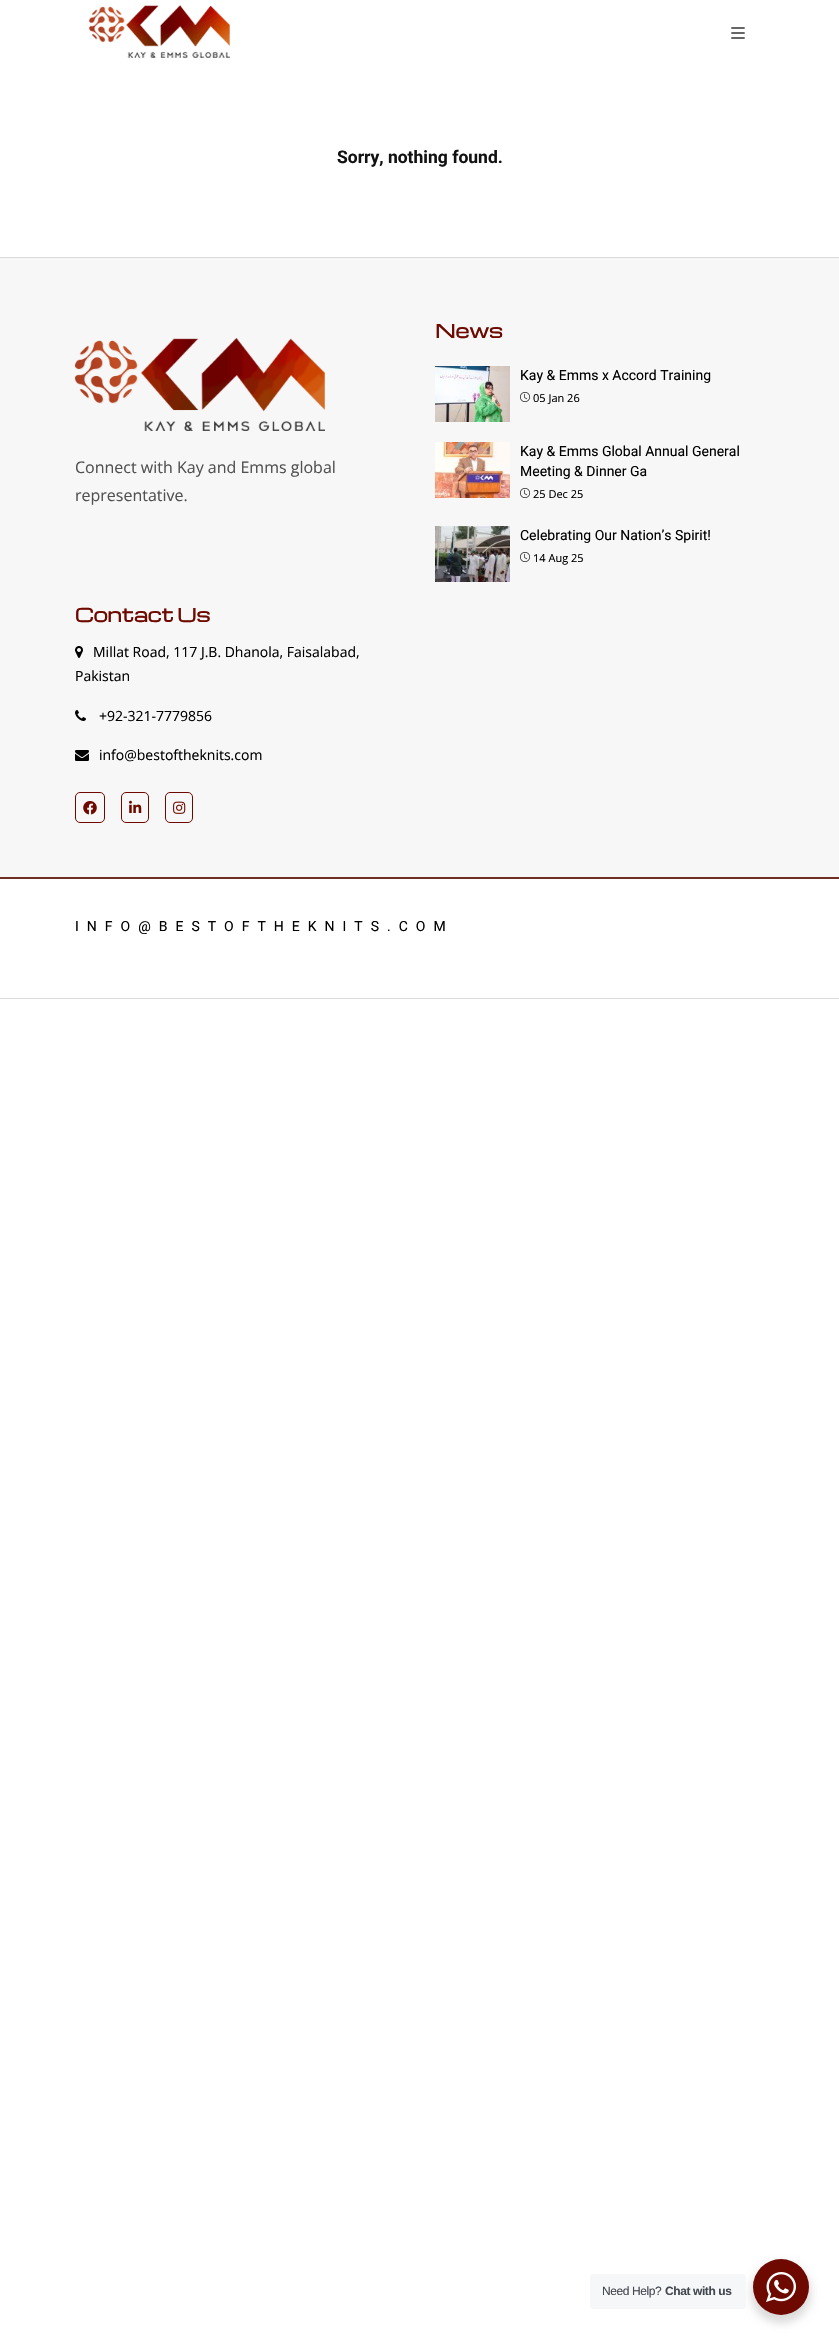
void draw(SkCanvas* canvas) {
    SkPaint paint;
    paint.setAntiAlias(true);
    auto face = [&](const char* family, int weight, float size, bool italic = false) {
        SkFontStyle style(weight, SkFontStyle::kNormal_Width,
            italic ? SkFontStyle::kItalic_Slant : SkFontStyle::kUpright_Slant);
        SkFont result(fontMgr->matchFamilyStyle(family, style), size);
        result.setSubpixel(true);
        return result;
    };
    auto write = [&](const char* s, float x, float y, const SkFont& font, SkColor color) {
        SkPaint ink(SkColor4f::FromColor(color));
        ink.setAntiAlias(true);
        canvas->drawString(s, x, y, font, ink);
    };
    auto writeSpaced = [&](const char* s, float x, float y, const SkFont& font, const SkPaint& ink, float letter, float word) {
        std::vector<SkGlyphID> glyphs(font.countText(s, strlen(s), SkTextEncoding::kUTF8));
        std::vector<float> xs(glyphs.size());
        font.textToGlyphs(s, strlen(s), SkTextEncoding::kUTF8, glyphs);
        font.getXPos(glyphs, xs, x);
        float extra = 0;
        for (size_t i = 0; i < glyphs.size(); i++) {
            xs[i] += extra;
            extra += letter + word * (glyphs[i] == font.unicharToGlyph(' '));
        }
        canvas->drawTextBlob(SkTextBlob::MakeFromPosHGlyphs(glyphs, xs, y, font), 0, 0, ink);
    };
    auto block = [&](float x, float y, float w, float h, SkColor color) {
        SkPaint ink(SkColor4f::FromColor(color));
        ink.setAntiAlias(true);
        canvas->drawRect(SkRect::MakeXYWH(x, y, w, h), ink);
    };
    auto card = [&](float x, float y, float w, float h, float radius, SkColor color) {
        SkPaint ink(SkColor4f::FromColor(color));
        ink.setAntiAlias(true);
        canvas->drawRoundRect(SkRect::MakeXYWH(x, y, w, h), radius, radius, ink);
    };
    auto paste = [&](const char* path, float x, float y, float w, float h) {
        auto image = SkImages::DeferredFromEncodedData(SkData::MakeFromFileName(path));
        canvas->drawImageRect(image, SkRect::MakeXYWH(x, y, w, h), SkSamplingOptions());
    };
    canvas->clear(SK_ColorWHITE);
    paste("pic1.png", 89, 5, 141, 53);
    paste("pic2.png", 731, 27, 14, 12);
    auto kFont1 = face("Roboto", 700, 17.5f);
    write("Sorry, nothing found.", 337, 163, kFont1, SkColorSetRGB(18, 18, 18));
    paint.setStyle(SkPaint::kStroke_Style);
    paint.setStrokeWidth(1);
    paint.setColor(SkColorSetRGB(217, 217, 217));
    canvas->drawRect(SkRect::MakeXYWH(-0.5f, 257.5f, 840, 741), paint);
    block(0, 258, 839, 619, SkColorSetRGB(247, 247, 247));
    paste("pic3.png", 75, 338, 250, 93);
    auto kFont2 = face("Open Sans", 400, 16);
    write("Connect with Kay and Emms global", 75, 473, kFont2, SkColorSetRGB(82, 81, 81));
    write("representative.", 75, 501, kFont2, SkColorSetRGB(82, 81, 81));
    auto kFont3 = face("Michroma", 700, 18);
    write("News", 435, 338, kFont3, SkColorSetRGB(110, 9, 0));
    paste("pic4.png", 435, 366, 75, 56);
    auto kFont4 = face("Roboto", 400, 14);
    write("Kay & Emms x Accord Training", 520, 380, kFont4, SK_ColorBLACK);
    paste("pic5.png", 520, 392, 10, 10);
    auto kFont5 = face("Open Sans", 400, 11);
    write("05 Jan 26", 533, 402, kFont5, SK_ColorBLACK);
    paste("pic6.png", 435, 442, 75, 56);
    write("Kay & Emms Global Annual General", 520, 456, kFont4, SK_ColorBLACK);
    write("Meeting & Dinner Ga", 520, 476, kFont4, SK_ColorBLACK);
    paste("pic5.png", 520, 488, 10, 10);
    write("25 Dec 25", 533, 498, kFont5, SK_ColorBLACK);
    paste("pic7.png", 435, 526, 75, 56);
    write("Celebrating Our Nation’s Spirit!", 520, 540, kFont4, SK_ColorBLACK);
    paste("pic5.png", 520, 552, 10, 10);
    write("14 Aug 25", 533, 562, kFont5, SK_ColorBLACK);
    write("Contact Us", 75, 622, kFont3, SkColorSetRGB(110, 9, 0));
    paste("pic8.png", 75, 646, 8, 12);
    auto kFont6 = face("Open Sans", 400, 14);
    write("Millat Road, 117 J.B. Dhanola, Faisalabad,", 93, 657, kFont6, SK_ColorBLACK);
    write("Pakistan", 75, 681, kFont6, SK_ColorBLACK);
    paste("pic9.png", 75, 710, 11, 11);
    write("+92-321-7779856", 99, 721, kFont6, SK_ColorBLACK);
    paste("pic10.png", 75, 750, 14, 11);
    write("info@bestoftheknits.com", 99, 760, kFont6, SK_ColorBLACK);
    paint.setColor(SkColorSetRGB(110, 9, 0));
    canvas->drawRoundRect(SkRect::MakeXYWH(75.5f, 792.5f, 29, 30), 4.5f, 4.5f, paint);
    paste("pic11.png", 83, 801, 14, 14);
    canvas->drawRoundRect(SkRect::MakeXYWH(121.5f, 792.5f, 27, 30), 4.5f, 4.5f, paint);
    paste("pic12.png", 129, 800, 13, 13);
    canvas->drawRoundRect(SkRect::MakeXYWH(165.5f, 792.5f, 27, 30), 4.5f, 4.5f, paint);
    paste("pic13.png", 173, 801, 13, 13);
    block(0, 877, 839, 2, SkColorSetRGB(114, 46, 35));
    paint.setStyle(SkPaint::kFill_Style);
    paint.setColor(SK_ColorBLACK);
    writeSpaced("INFO@BESTOFTHEKNITS.COM", 75, 931, kFont4, paint, 8, 0);
    paint.setColor(SkColorSetARGB(36, 0, 0, 0));
    paint.setMaskFilter(SkMaskFilter::MakeBlur(kNormal_SkBlurStyle, 4));
    canvas->drawRoundRect(SkRect::MakeXYWH(751, 2263, 60, 60), 30, 30, paint);
    paint.setMaskFilter(nullptr);
    card(590, 2274, 156, 35, 4, SkColorSetRGB(245, 247, 249));
    auto kFont7 = face("Liberation Sans", 400, 12);
    paint.setColor(SkColorSetRGB(67, 71, 78));
    writeSpaced("Need Help?", 602, 2295, kFont7, paint, -0.4f, 0);
    auto kFont8 = face("Liberation Sans", 700, 12);
    writeSpaced("Chat with us", 665, 2295, kFont8, paint, -0.4f, 0);
    paint.setColor(SkColorSetRGB(110, 9, 0));
    canvas->drawCircle(781, 2287, 28, paint);
    paste("pic14.png", 766, 2272, 30, 30);
}
